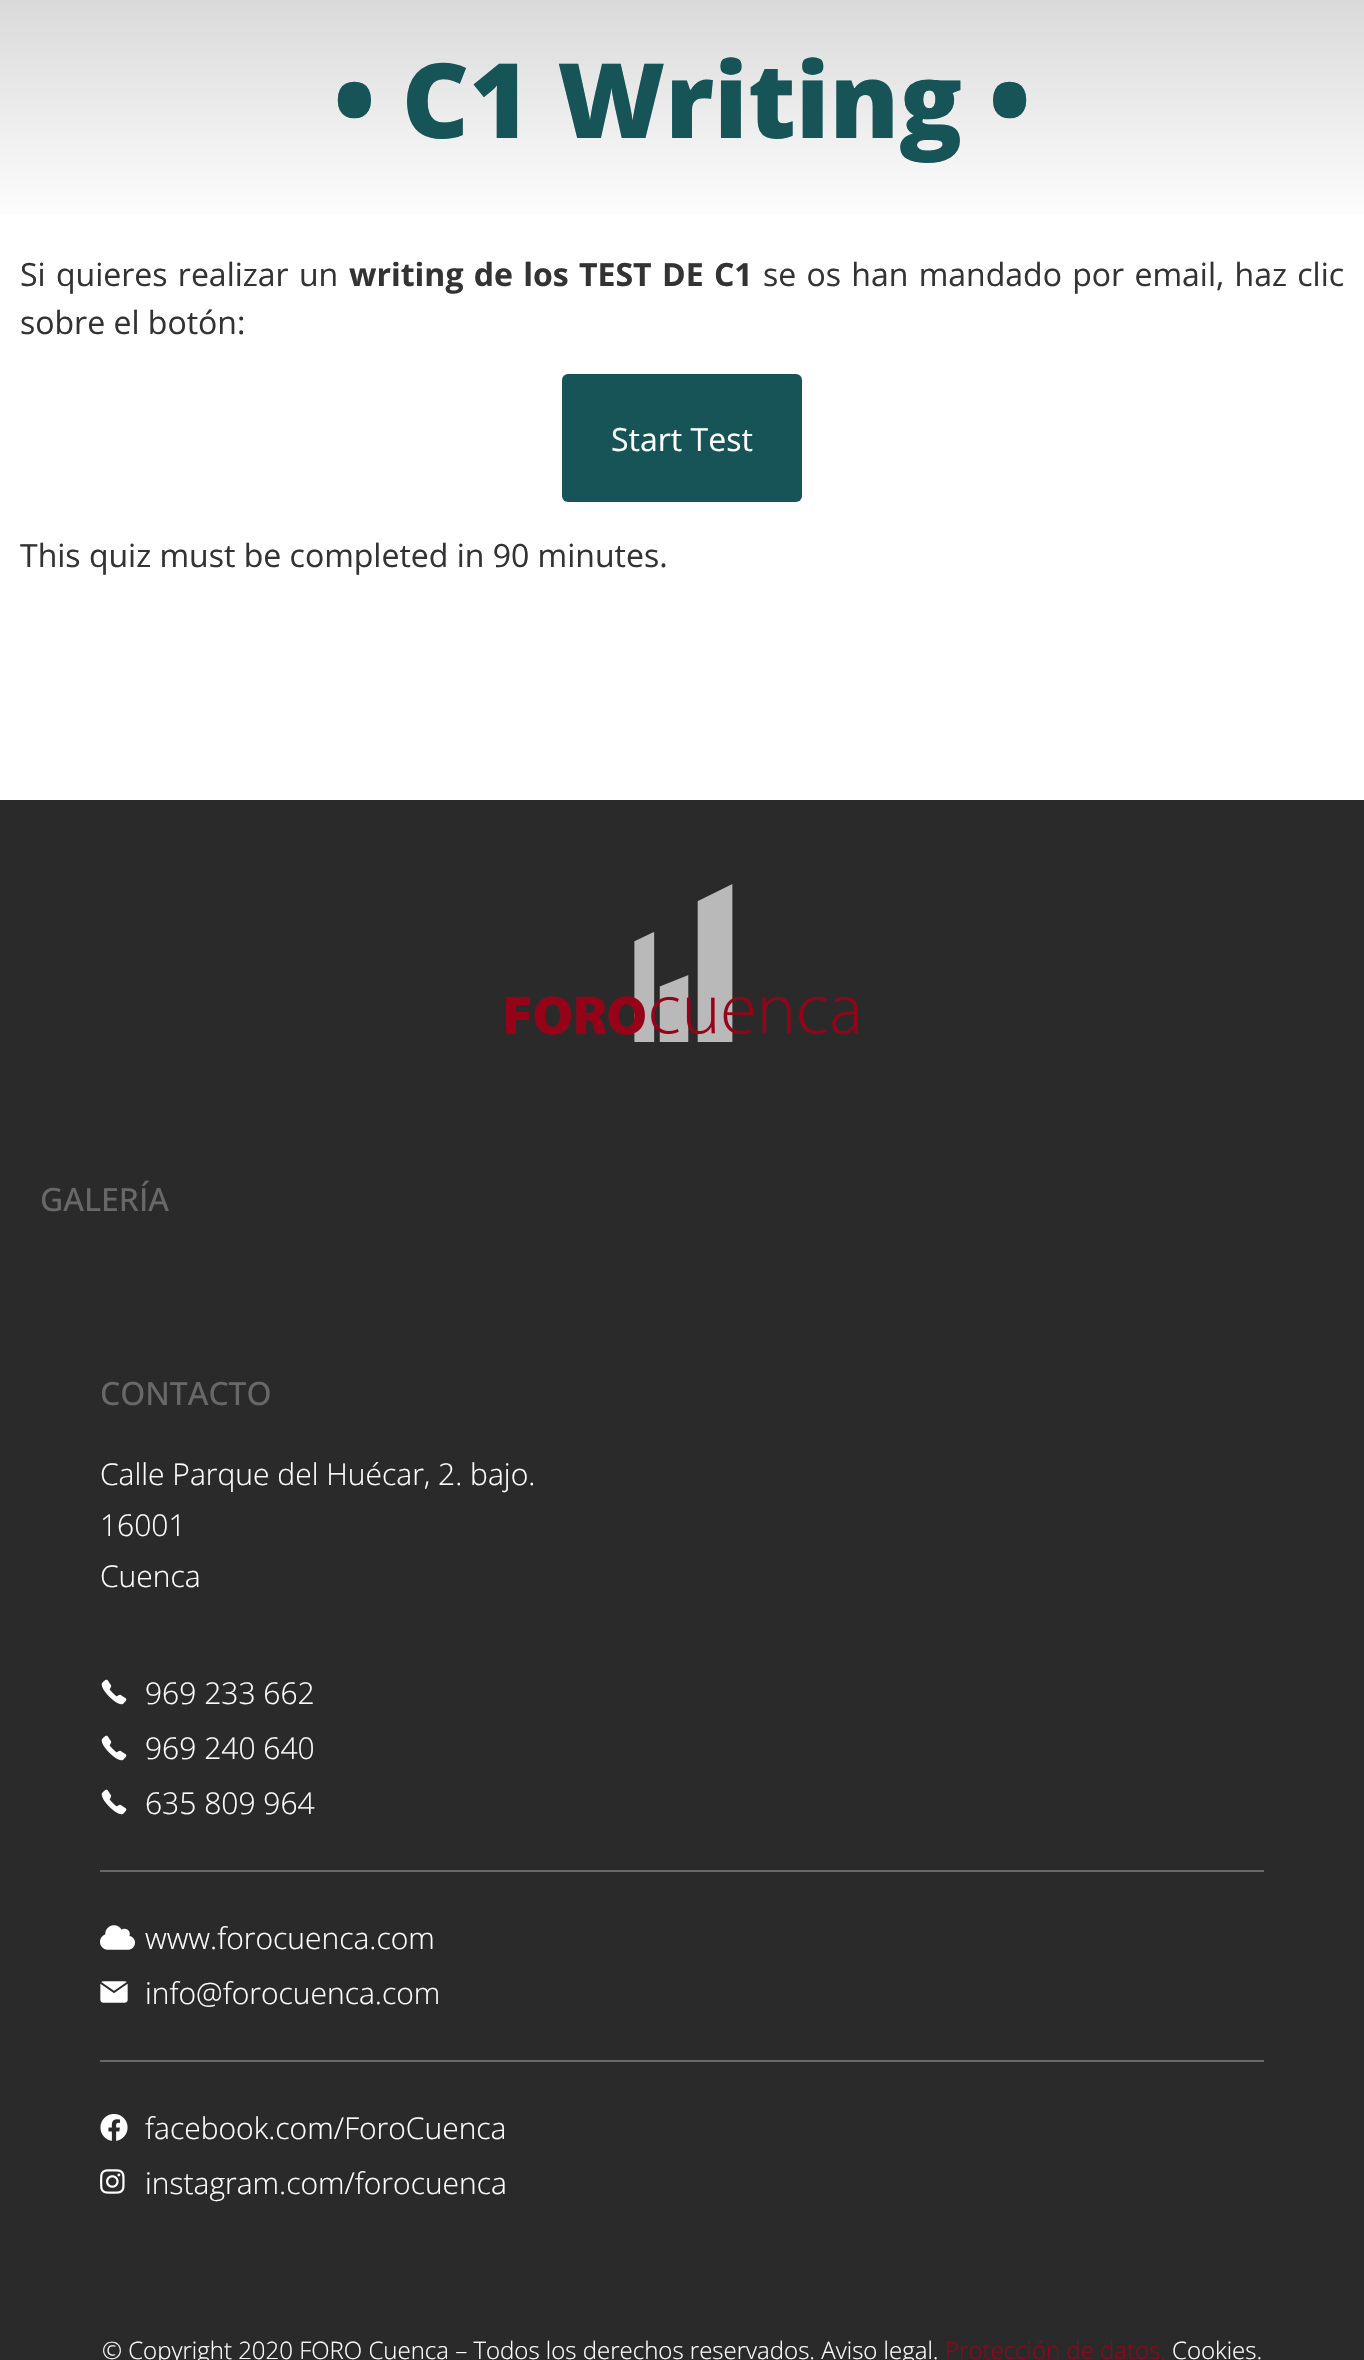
void draw(SkCanvas* canvas) {
    SkPaint paint;
    paint.setAntiAlias(true);
    auto face = [&](const char* family, int weight, float size, bool italic = false) {
        SkFontStyle style(weight, SkFontStyle::kNormal_Width,
            italic ? SkFontStyle::kItalic_Slant : SkFontStyle::kUpright_Slant);
        SkFont result(fontMgr->matchFamilyStyle(family, style), size);
        result.setSubpixel(true);
        return result;
    };
    auto write = [&](const char* s, float x, float y, const SkFont& font, SkColor color) {
        SkPaint ink(SkColor4f::FromColor(color));
        ink.setAntiAlias(true);
        canvas->drawString(s, x, y, font, ink);
    };
    auto writeSpaced = [&](const char* s, float x, float y, const SkFont& font, const SkPaint& ink, float letter, float word) {
        std::vector<SkGlyphID> glyphs(font.countText(s, strlen(s), SkTextEncoding::kUTF8));
        std::vector<float> xs(glyphs.size());
        font.textToGlyphs(s, strlen(s), SkTextEncoding::kUTF8, glyphs);
        font.getXPos(glyphs, xs, x);
        float extra = 0;
        for (size_t i = 0; i < glyphs.size(); i++) {
            xs[i] += extra;
            extra += letter + word * (glyphs[i] == font.unicharToGlyph(' '));
        }
        canvas->drawTextBlob(SkTextBlob::MakeFromPosHGlyphs(glyphs, xs, y, font), 0, 0, ink);
    };
    auto block = [&](float x, float y, float w, float h, SkColor color) {
        SkPaint ink(SkColor4f::FromColor(color));
        ink.setAntiAlias(true);
        canvas->drawRect(SkRect::MakeXYWH(x, y, w, h), ink);
    };
    auto card = [&](float x, float y, float w, float h, float radius, SkColor color) {
        SkPaint ink(SkColor4f::FromColor(color));
        ink.setAntiAlias(true);
        canvas->drawRoundRect(SkRect::MakeXYWH(x, y, w, h), radius, radius, ink);
    };
    auto paste = [&](const char* path, float x, float y, float w, float h) {
        auto image = SkImages::DeferredFromEncodedData(SkData::MakeFromFileName(path));
        canvas->drawImageRect(image, SkRect::MakeXYWH(x, y, w, h), SkSamplingOptions());
    };
    canvas->clear(SK_ColorWHITE);
    {
        const SkColor colors[] = {SkColorSetRGB(199, 199, 199), SK_ColorWHITE};
        const float stops[] = {0, 1};
        const SkPoint ends[] = {{682, -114}, {682, 230}};
        paint.setShader(SkGradientShader::MakeLinear(ends, colors, stops, 2, SkTileMode::kClamp));
        paint.setAlpha(255);
    }
    canvas->drawRect(SkRect::MakeXYWH(0, 0, 1364, 215), paint);
    auto kFont1 = face("Open Sans", 800, 104);
    write("• C1 Writing •", 334, 138, kFont1, SkColorSetRGB(22, 84, 87));
    auto kFont2 = face("Open Sans", 400, 32);
    paint.setShader(nullptr);
    paint.setColor(SkColorSetRGB(51, 51, 51));
    writeSpaced("Si quieres realizar un", 20, 286, kFont2, paint, 0, 2);
    auto kFont3 = face("Open Sans", 700, 32);
    writeSpaced("writing de los TEST DE C1", 349, 286, kFont3, paint, 0, 2);
    writeSpaced("se os han mandado por email, haz clic", 763, 286, kFont2, paint, 0, 2);
    write("sobre el botón:", 20, 334, kFont2, SkColorSetRGB(51, 51, 51));
    card(562, 374, 240, 128, 6, SkColorSetRGB(22, 84, 87));
    write("Start Test", 611, 451, kFont2, SK_ColorWHITE);
    write("This quiz must be completed in 90 minutes.", 20, 567, kFont2, SkColorSetRGB(51, 51, 51));
    block(0, 800, 1364, 1560, SkColorSetRGB(42, 42, 42));
    paste("pic1.png", 506, 884, 352, 158);
    auto kFont4 = face("Open Sans", 500, 32);
    write("GALERÍA", 40, 1211, kFont4, SkColorSetRGB(104, 104, 104));
    write("CONTACTO", 100, 1405, kFont4, SkColorSetRGB(104, 104, 104));
    auto kFont5 = face("Open Sans", 300, 30);
    write("Calle Parque del Huécar, 2. bajo.", 100, 1485, kFont5, SK_ColorWHITE);
    write("16001", 100, 1536, kFont5, SK_ColorWHITE);
    write("Cuenca", 100, 1587, kFont5, SK_ColorWHITE);
    paste("pic2.png", 101, 1679, 26, 26);
    write("969 233 662", 145, 1704, kFont5, SK_ColorWHITE);
    paste("pic2.png", 101, 1735, 26, 26);
    write("969 240 640", 145, 1759, kFont5, SK_ColorWHITE);
    paste("pic2.png", 101, 1789, 26, 26);
    write("635 809 964", 145, 1814, kFont5, SK_ColorWHITE);
    block(100, 1870, 1164, 2, SkColorSetRGB(104, 104, 104));
    paste("pic3.png", 100, 1925, 35, 25);
    write("www.forocuenca.com", 145, 1949, kFont5, SK_ColorWHITE);
    paste("pic4.png", 100, 1981, 28, 22);
    write("info@forocuenca.com", 145, 2004, kFont5, SK_ColorWHITE);
    block(100, 2060, 1164, 2, SkColorSetRGB(104, 104, 104));
    paste("pic5.png", 100, 2114, 28, 27);
    write("facebook.com/ForoCuenca", 145, 2139, kFont5, SK_ColorWHITE);
    paste("pic6.png", 100, 2169, 25, 25);
    write("instagram.com/forocuenca", 145, 2194, kFont5, SK_ColorWHITE);
    auto kFont6 = face("Open Sans", 300, 24);
    write("© Copyright 2020 FORO Cuenca – Todos los derechos reservados. Aviso legal.", 102, 2359, kFont6, SK_ColorWHITE);
    write("Protección de datos.", 945, 2359, kFont6, SkColorSetRGB(150, 3, 25));
    write("Cookies.", 1172, 2359, kFont6, SK_ColorWHITE);
}
